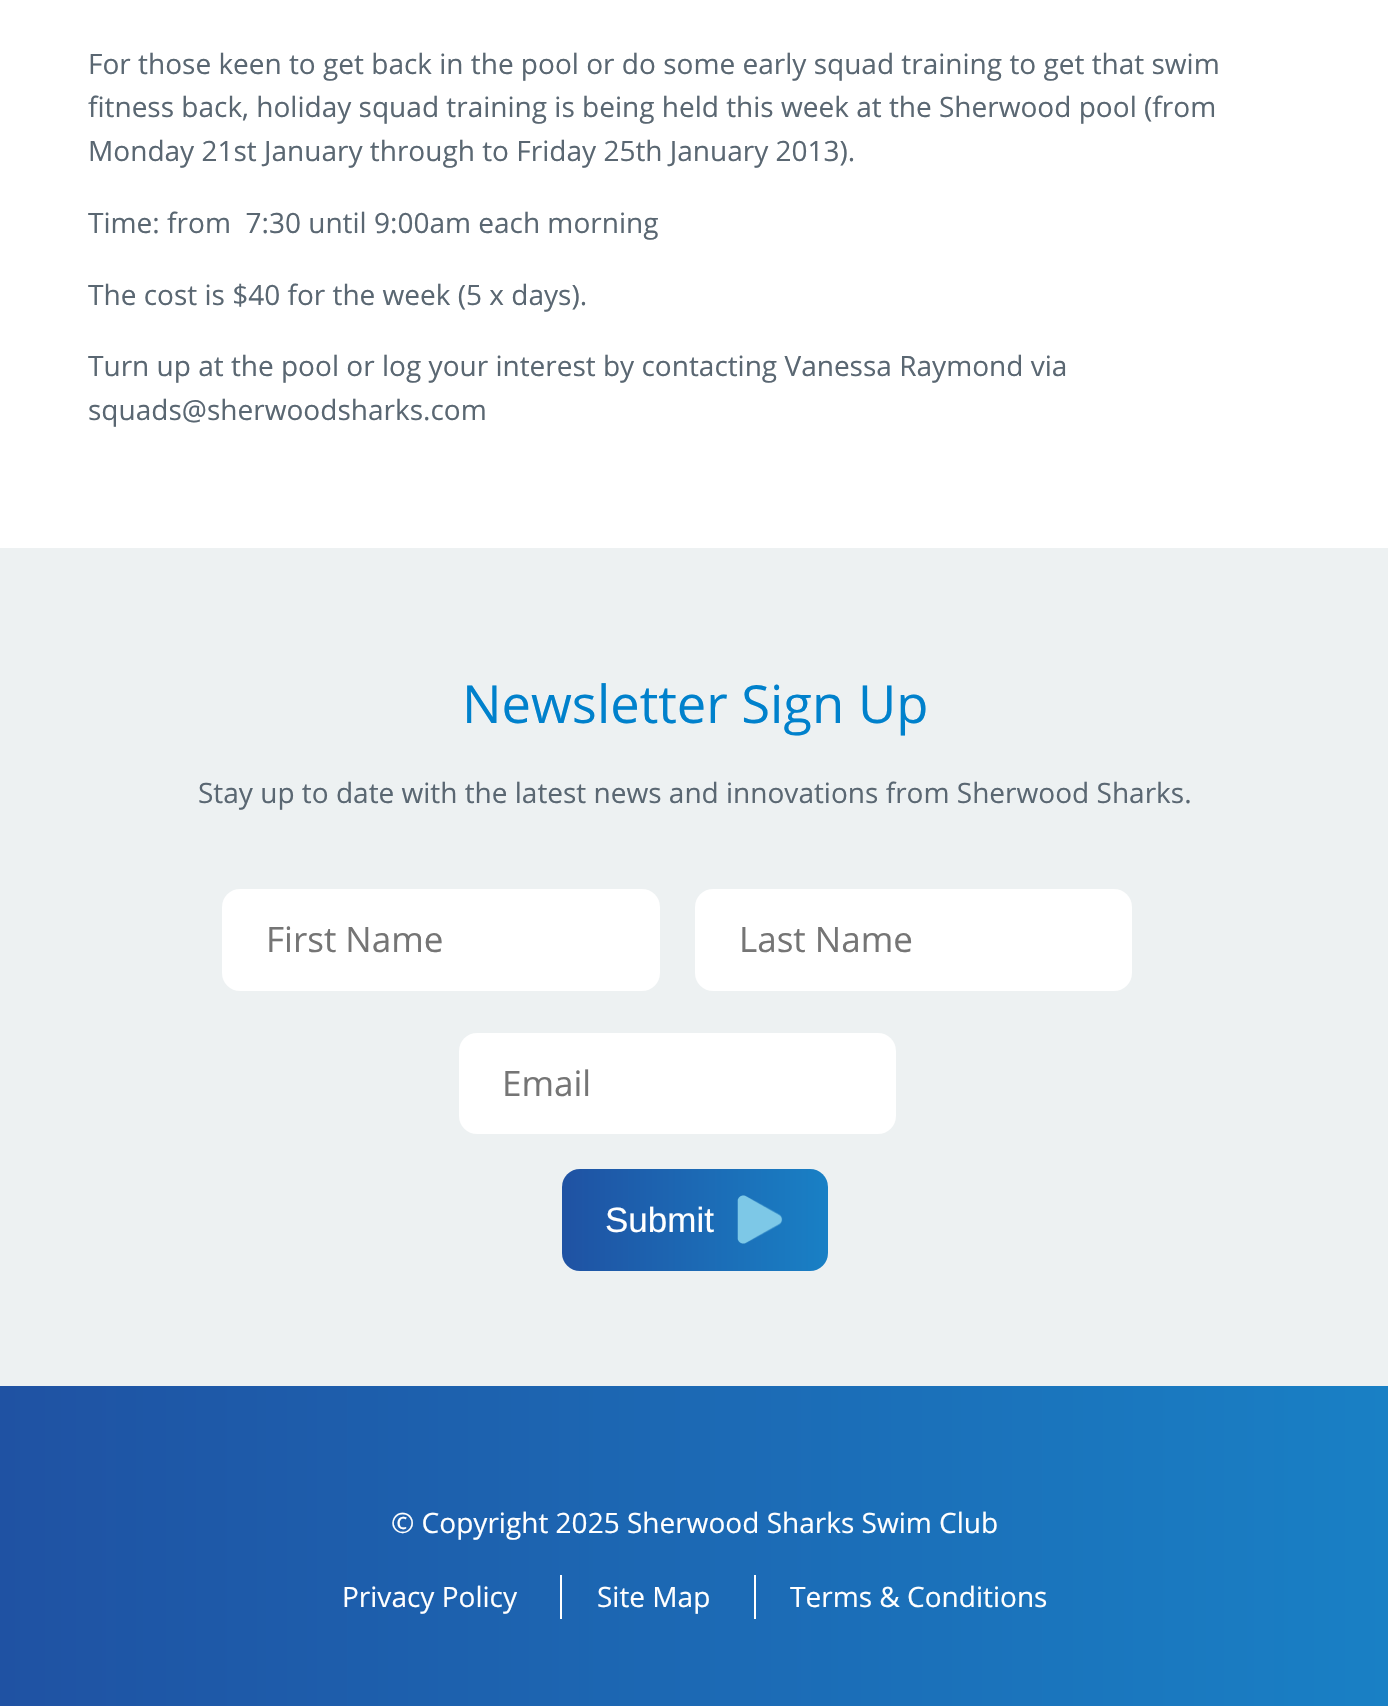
void draw(SkCanvas* canvas) {
    SkPaint paint;
    paint.setAntiAlias(true);
    auto face = [&](const char* family, int weight, float size, bool italic = false) {
        SkFontStyle style(weight, SkFontStyle::kNormal_Width,
            italic ? SkFontStyle::kItalic_Slant : SkFontStyle::kUpright_Slant);
        SkFont result(fontMgr->matchFamilyStyle(family, style), size);
        result.setSubpixel(true);
        return result;
    };
    auto write = [&](const char* s, float x, float y, const SkFont& font, SkColor color) {
        SkPaint ink(SkColor4f::FromColor(color));
        ink.setAntiAlias(true);
        canvas->drawString(s, x, y, font, ink);
    };
    auto block = [&](float x, float y, float w, float h, SkColor color) {
        SkPaint ink(SkColor4f::FromColor(color));
        ink.setAntiAlias(true);
        canvas->drawRect(SkRect::MakeXYWH(x, y, w, h), ink);
    };
    auto card = [&](float x, float y, float w, float h, float radius, SkColor color) {
        SkPaint ink(SkColor4f::FromColor(color));
        ink.setAntiAlias(true);
        canvas->drawRoundRect(SkRect::MakeXYWH(x, y, w, h), radius, radius, ink);
    };
    auto paste = [&](const char* path, float x, float y, float w, float h) {
        auto image = SkImages::DeferredFromEncodedData(SkData::MakeFromFileName(path));
        canvas->drawImageRect(image, SkRect::MakeXYWH(x, y, w, h), SkSamplingOptions());
    };
    canvas->clear(SK_ColorWHITE);
    auto kFont1 = face("Open Sans", 400, 28);
    write("For those keen to get back in the pool or do some early squad training to get that swim", 88, 74, kFont1, SkColorSetRGB(90, 103, 114));
    write("fitness back, holiday squad training is being held this week at the Sherwood pool (from", 88, 117, kFont1, SkColorSetRGB(90, 103, 114));
    write("Monday 21st January through to Friday 25th January 2013).", 88, 161, kFont1, SkColorSetRGB(90, 103, 114));
    write("Time: from  7:30 until 9:00am each morning", 88, 233, kFont1, SkColorSetRGB(90, 103, 114));
    write("The cost is $40 for the week (5 x days).", 88, 305, kFont1, SkColorSetRGB(90, 103, 114));
    write("Turn up at the pool or log your interest by contacting Vanessa Raymond via", 88, 376, kFont1, SkColorSetRGB(90, 103, 114));
    write("squads@sherwoodsharks.com", 88, 420, kFont1, SkColorSetRGB(90, 103, 114));
    block(0, 548, 1388, 838, SkColorSetRGB(237, 241, 242));
    auto kFont2 = face("Open Sans", 400, 52.5f);
    write("Newsletter Sign Up", 462, 723, kFont2, SkColorSetRGB(0, 129, 204));
    write("Stay up to date with the latest news and innovations from Sherwood Sharks.", 198, 803, kFont1, SkColorSetRGB(90, 103, 114));
    card(222, 889, 438, 102, 18, SK_ColorWHITE);
    auto kFont3 = face("Open Sans", 400, 35);
    write("First Name", 266, 952, kFont3, SkColorSetRGB(117, 117, 117));
    card(695, 889, 437, 102, 18, SK_ColorWHITE);
    write("Last Name", 739, 952, kFont3, SkColorSetRGB(117, 117, 117));
    card(459, 1033, 437, 101, 18, SK_ColorWHITE);
    write("Email", 502, 1096, kFont3, SkColorSetRGB(117, 117, 117));
    {
        const SkColor colors[] = {SkColorSetRGB(31, 82, 163), SkColorSetRGB(25, 128, 197)};
        const float stops[] = {0, 1};
        const SkPoint ends[] = {{562, 1220}, {828, 1220}};
        paint.setShader(SkGradientShader::MakeLinear(ends, colors, stops, 2, SkTileMode::kClamp));
        paint.setAlpha(255);
    }
    canvas->drawRoundRect(SkRect::MakeXYWH(562, 1169, 266, 102), 18, 18, paint);
    paste("pic1.png", 737, 1195, 46, 49);
    auto kFont4 = face("Liberation Sans", 400, 35);
    write("Submit", 605, 1232, kFont4, SK_ColorWHITE);
    {
        const SkColor colors[] = {SkColorSetRGB(31, 82, 163), SkColorSetRGB(25, 128, 197)};
        const float stops[] = {0, 1};
        const SkPoint ends[] = {{0, 1546}, {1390, 1546}};
        paint.setShader(SkGradientShader::MakeLinear(ends, colors, stops, 2, SkTileMode::kClamp));
        paint.setAlpha(255);
    }
    canvas->drawRect(SkRect::MakeXYWH(0, 1386, 1388, 320), paint);
    write("© Copyright 2025 Sherwood Sharks Swim Club", 391, 1533, kFont1, SK_ColorWHITE);
    write("Privacy Policy", 342, 1607, kFont1, SK_ColorWHITE);
    block(560, 1575, 2, 44, SK_ColorWHITE);
    write("Site Map", 597, 1607, kFont1, SK_ColorWHITE);
    block(754, 1575, 2, 44, SK_ColorWHITE);
    write("Terms & Conditions", 790, 1607, kFont1, SK_ColorWHITE);
}
